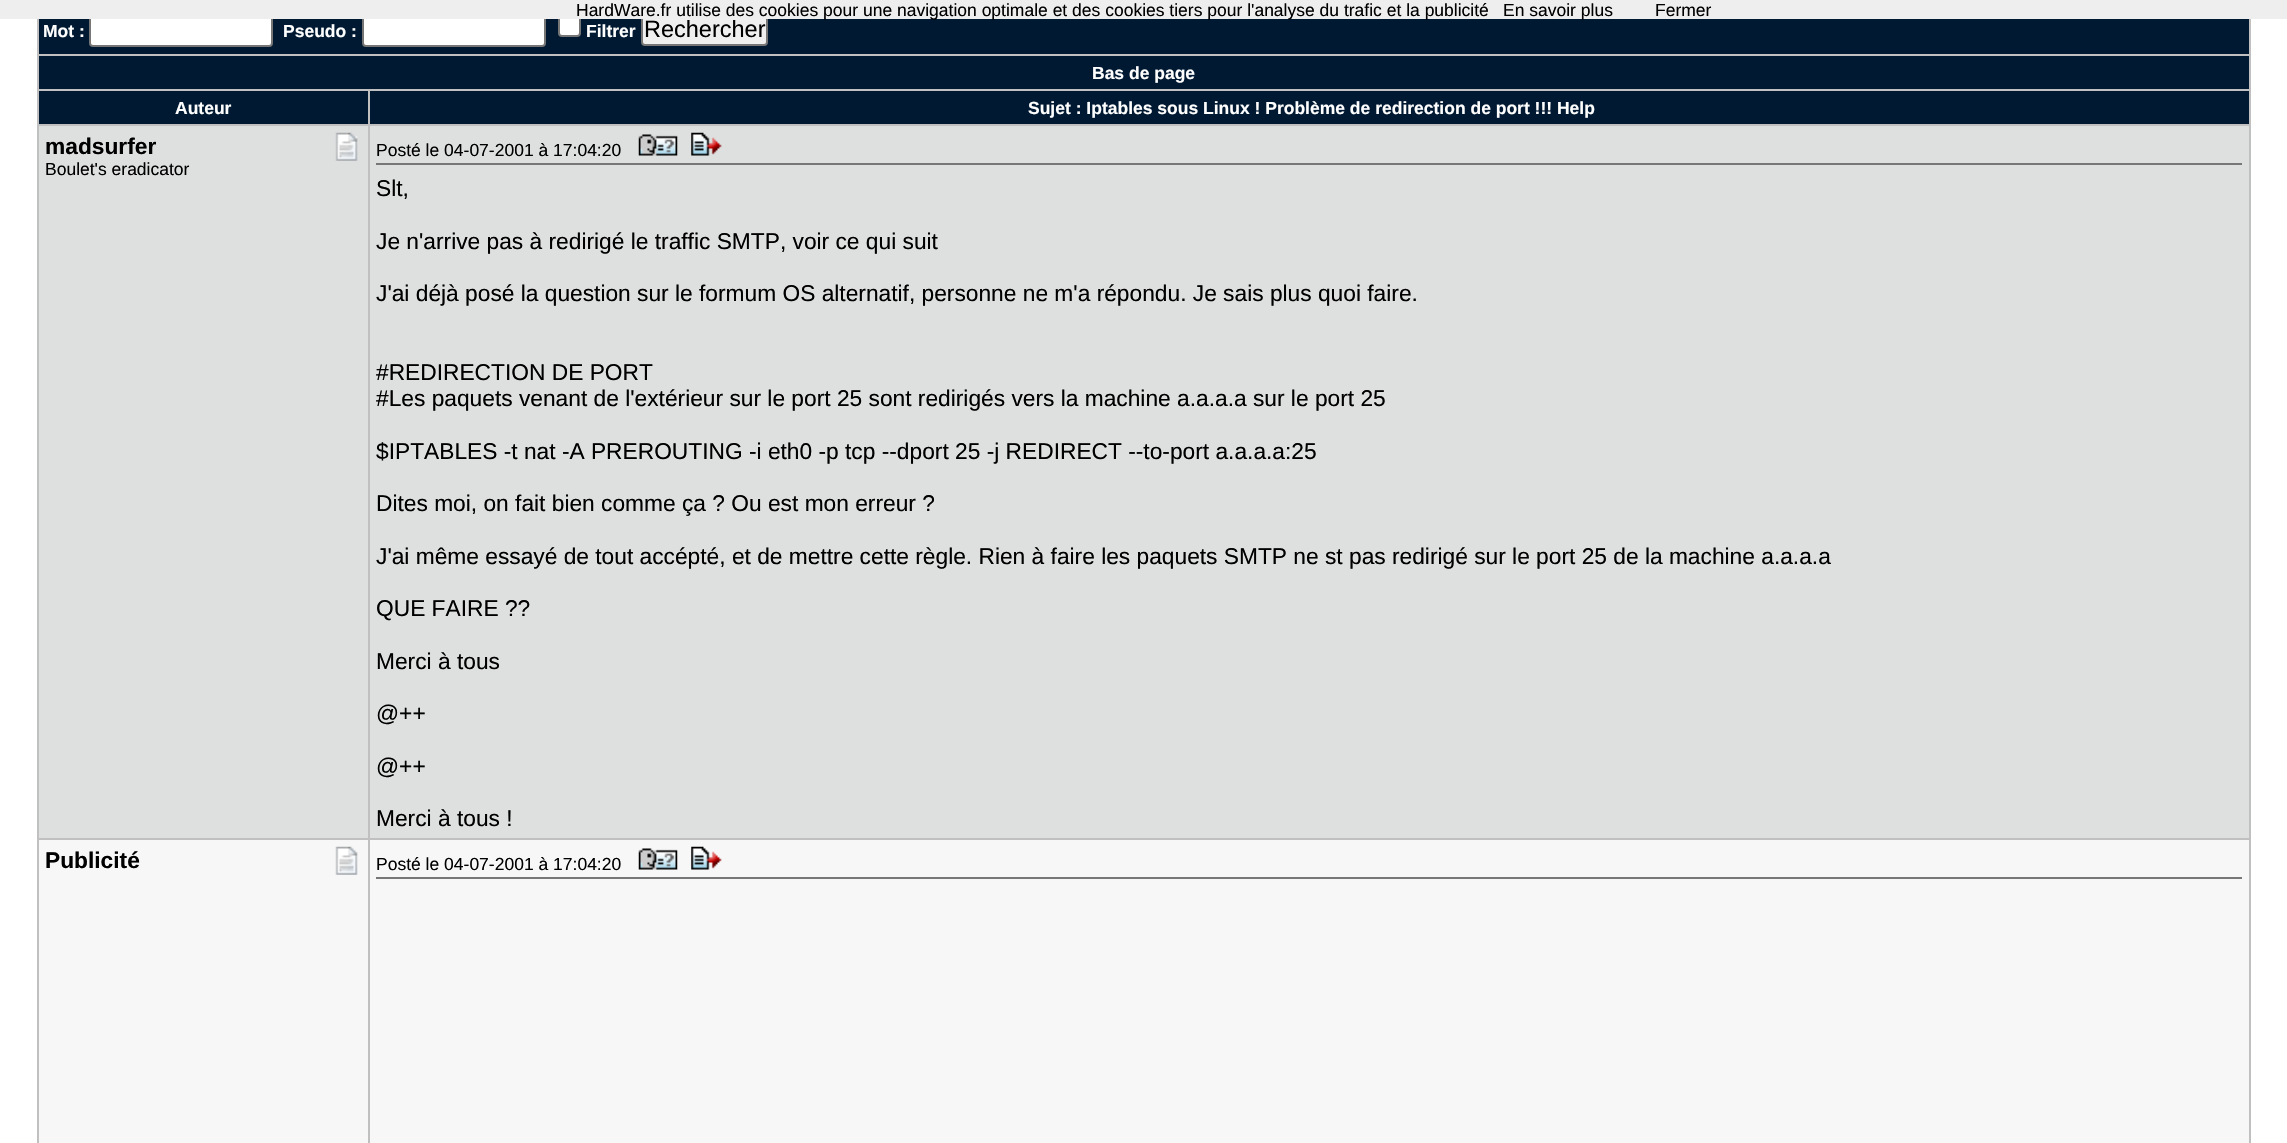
void draw(SkCanvas* canvas) {
    SkPaint paint;
    paint.setAntiAlias(true);
    auto face = [&](const char* family, int weight, float size, bool italic = false) {
        SkFontStyle style(weight, SkFontStyle::kNormal_Width,
            italic ? SkFontStyle::kItalic_Slant : SkFontStyle::kUpright_Slant);
        SkFont result(fontMgr->matchFamilyStyle(family, style), size);
        result.setSubpixel(true);
        return result;
    };
    auto write = [&](const char* s, float x, float y, const SkFont& font, SkColor color) {
        SkPaint ink(SkColor4f::FromColor(color));
        ink.setAntiAlias(true);
        canvas->drawString(s, x, y, font, ink);
    };
    auto block = [&](float x, float y, float w, float h, SkColor color) {
        SkPaint ink(SkColor4f::FromColor(color));
        ink.setAntiAlias(true);
        canvas->drawRect(SkRect::MakeXYWH(x, y, w, h), ink);
    };
    auto paste = [&](const char* path, float x, float y, float w, float h) {
        auto image = SkImages::DeferredFromEncodedData(SkData::MakeFromFileName(path));
        canvas->drawImageRect(image, SkRect::MakeXYWH(x, y, w, h), SkSamplingOptions());
    };
    canvas->clear(SK_ColorWHITE);
    block(39, 19, 2210, 35, SkColorSetRGB(0, 25, 50));
    paint.setColor(SK_ColorWHITE);
    canvas->drawRoundRect(SkRect::MakeXYWH(90, 12, 182, 34), 3, 3, paint);
    paint.setStyle(SkPaint::kStroke_Style);
    paint.setStrokeWidth(2);
    paint.setColor(SkColorSetRGB(118, 118, 118));
    canvas->drawRoundRect(SkRect::MakeXYWH(90, 12, 182, 34), 3, 3, paint);
    paint.setStyle(SkPaint::kFill_Style);
    paint.setColor(SK_ColorWHITE);
    canvas->drawRoundRect(SkRect::MakeXYWH(363, 12, 182, 34), 3, 3, paint);
    paint.setStyle(SkPaint::kStroke_Style);
    paint.setColor(SkColorSetRGB(118, 118, 118));
    canvas->drawRoundRect(SkRect::MakeXYWH(363, 12, 182, 34), 3, 3, paint);
    paint.setStyle(SkPaint::kFill_Style);
    paint.setColor(SK_ColorWHITE);
    canvas->drawRoundRect(SkRect::MakeXYWH(559, 15, 21, 21), 3, 3, paint);
    paint.setStyle(SkPaint::kStroke_Style);
    paint.setColor(SkColorSetRGB(118, 118, 118));
    canvas->drawRoundRect(SkRect::MakeXYWH(559, 15, 21, 21), 3, 3, paint);
    paint.setStyle(SkPaint::kFill_Style);
    paint.setColor(SkColorSetRGB(239, 239, 239));
    canvas->drawRoundRect(SkRect::MakeXYWH(642, 13, 125, 32), 3, 3, paint);
    paint.setStyle(SkPaint::kStroke_Style);
    paint.setColor(SkColorSetRGB(118, 118, 118));
    canvas->drawRoundRect(SkRect::MakeXYWH(642, 13, 125, 32), 3, 3, paint);
    block(0, 0, 2287, 19, SkColorSetRGB(238, 238, 238));
    auto kFont1 = face("Liberation Sans", 400, 17.5f);
    write("HardWare.fr utilise des cookies pour une navigation optimale et des cookies tiers pour l'analyse du trafic et la publicité", 576, 16, kFont1, SK_ColorBLACK);
    write("En savoir plus", 1503, 16, kFont1, SK_ColorBLACK);
    write("Fermer", 1655, 16, kFont1, SK_ColorBLACK);
    block(2249, 19, 2, 1124, SkColorSetRGB(192, 192, 192));
    block(37, 54, 2212, 2, SkColorSetRGB(192, 192, 192));
    block(37, 19, 2, 37, SkColorSetRGB(192, 192, 192));
    auto kFont2 = face("Liberation Sans", 700, 17.5f);
    write("Mot :", 43, 37, kFont2, SK_ColorWHITE);
    write("Pseudo :", 283, 37, kFont2, SK_ColorWHITE);
    write("Filtrer", 586, 37, kFont2, SK_ColorWHITE);
    auto kFont3 = face("Liberation Sans", 400, 23.5f);
    write("Rechercher", 644, 37, kFont3, SK_ColorBLACK);
    block(39, 56, 2210, 33, SkColorSetRGB(0, 25, 50));
    block(37, 89, 2212, 2, SkColorSetRGB(192, 192, 192));
    block(37, 56, 2, 35, SkColorSetRGB(192, 192, 192));
    write("Bas de page", 1092, 79, kFont2, SK_ColorWHITE);
    block(39, 91, 2210, 33, SkColorSetRGB(0, 25, 50));
    block(37, 124, 2212, 2, SkColorSetRGB(192, 192, 192));
    block(37, 91, 2, 35, SkColorSetRGB(192, 192, 192));
    write("Auteur", 175, 114, kFont2, SK_ColorWHITE);
    block(368, 91, 2, 35, SkColorSetRGB(192, 192, 192));
    write("Sujet : Iptables sous Linux ! Problème de redirection de port !!! Help", 1028, 114, kFont2, SK_ColorWHITE);
    block(39, 126, 2210, 712, SkColorSetRGB(222, 223, 223));
    block(37, 838, 2212, 2, SkColorSetRGB(192, 192, 192));
    block(37, 126, 2, 1017, SkColorSetRGB(192, 192, 192));
    auto kFont4 = face("Liberation Sans", 700, 22.75f);
    write("madsurfer", 45, 154, kFont4, SK_ColorBLACK);
    paste("pic1.png", 335, 132, 23, 29);
    write("Boulet's eradicator", 45, 175, kFont1, SK_ColorBLACK);
    block(368, 126, 2, 714, SkColorSetRGB(192, 192, 192));
    block(376, 163, 1866, 2, SkColorSetRGB(119, 119, 119));
    write("Posté le 04-07-2001 à 17:04:20", 376, 156, kFont1, SK_ColorBLACK);
    paste("pic2.png", 638, 134, 40, 22);
    paste("pic3.png", 691, 132, 31, 24);
    auto kFont5 = face("Liberation Sans", 400, 22.75f);
    write("Slt,", 376, 196, kFont5, SK_ColorBLACK);
    write("Je n'arrive pas à redirigé le traffic SMTP, voir ce qui suit", 376, 249, kFont5, SK_ColorBLACK);
    write("J'ai déjà posé la question sur le formum OS alternatif, personne ne m'a répondu. Je sais plus quoi faire.", 376, 301, kFont5, SK_ColorBLACK);
    write("#REDIRECTION DE PORT", 376, 380, kFont5, SK_ColorBLACK);
    write("#Les paquets venant de l'extérieur sur le port 25 sont redirigés vers la machine a.a.a.a sur le port 25", 376, 406, kFont5, SK_ColorBLACK);
    write("$IPTABLES -t nat -A PREROUTING -i eth0 -p tcp --dport 25 -j REDIRECT --to-port a.a.a.a:25", 376, 459, kFont5, SK_ColorBLACK);
    write("Dites moi, on fait bien comme ça ? Ou est mon erreur ?", 376, 511, kFont5, SK_ColorBLACK);
    write("J'ai même essayé de tout accépté, et de mettre cette règle. Rien à faire les paquets SMTP ne st pas redirigé sur le port 25 de la machine a.a.a.a", 376, 564, kFont5, SK_ColorBLACK);
    write("QUE FAIRE ?\077", 376, 616, kFont5, SK_ColorBLACK);
    write("Merci à tous", 376, 669, kFont5, SK_ColorBLACK);
    write("@++", 376, 721, kFont5, SK_ColorBLACK);
    write("@++", 376, 774, kFont5, SK_ColorBLACK);
    write("Merci à tous !", 376, 826, kFont5, SK_ColorBLACK);
    block(39, 840, 2210, 303, SkColorSetRGB(247, 247, 247));
    write("Publicité", 45, 868, kFont4, SK_ColorBLACK);
    paste("pic4.png", 335, 846, 23, 29);
    block(368, 840, 2, 303, SkColorSetRGB(192, 192, 192));
    block(376, 877, 1866, 2, SkColorSetRGB(119, 119, 119));
    write("Posté le 04-07-2001 à 17:04:20", 376, 870, kFont1, SK_ColorBLACK);
    paste("pic5.png", 638, 848, 40, 22);
    paste("pic6.png", 691, 846, 31, 24);
}
